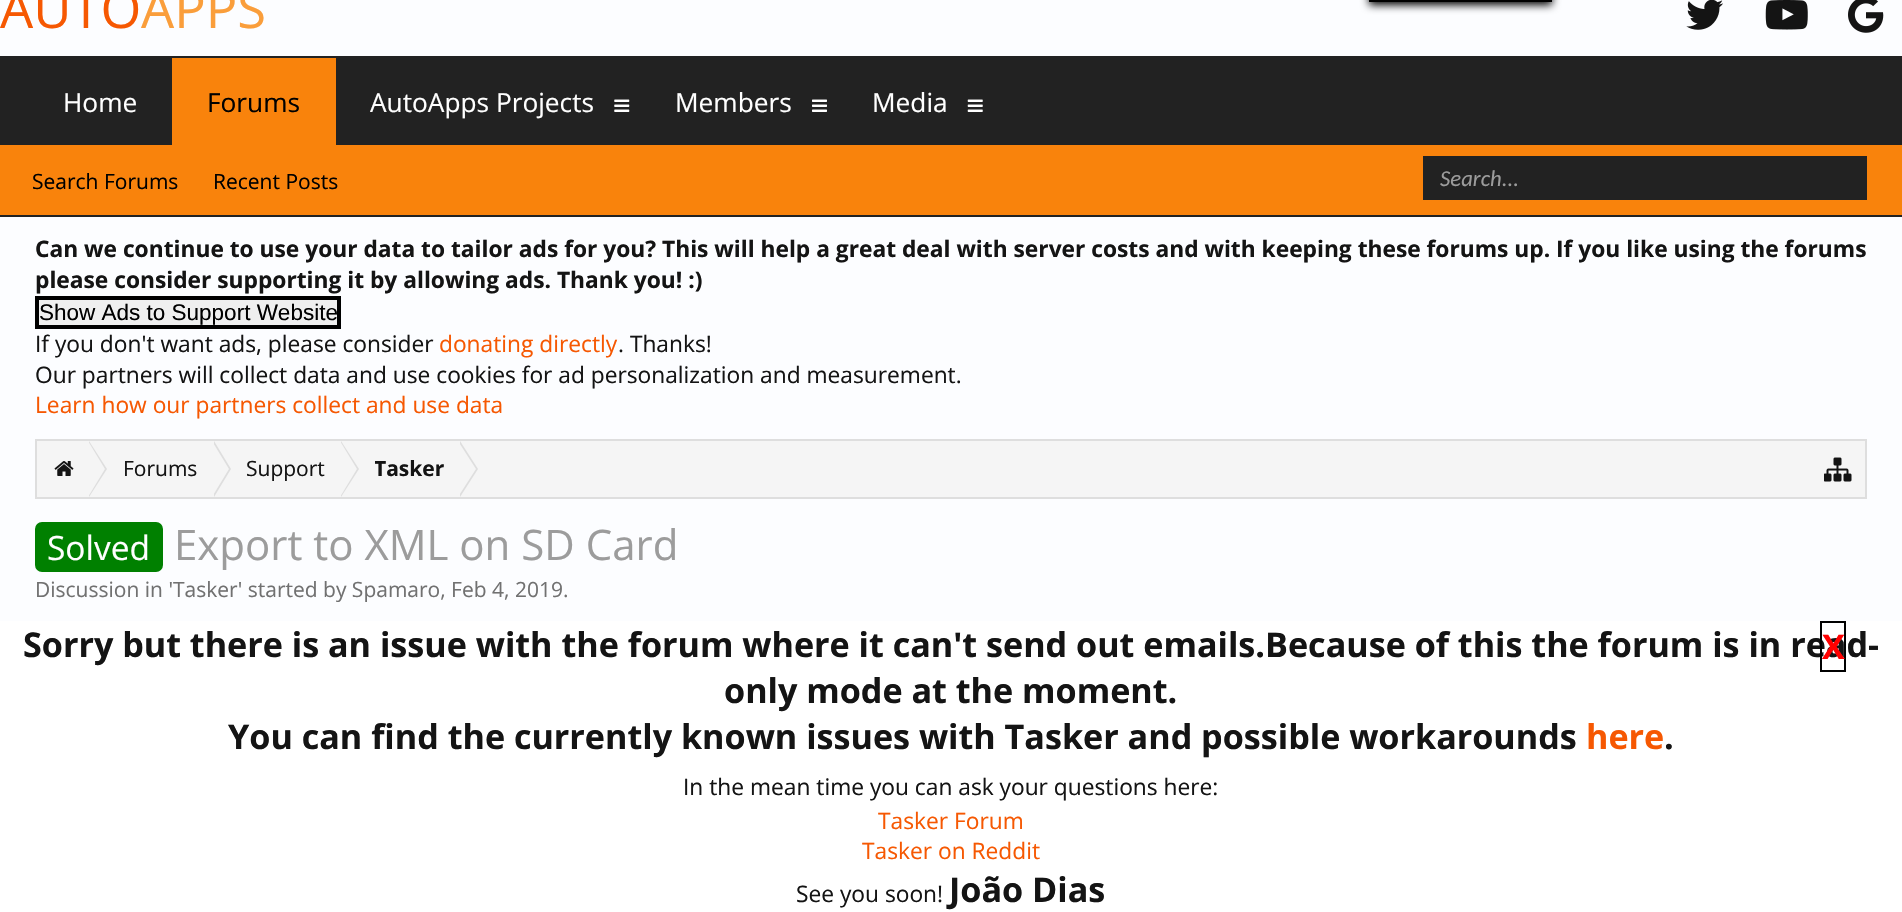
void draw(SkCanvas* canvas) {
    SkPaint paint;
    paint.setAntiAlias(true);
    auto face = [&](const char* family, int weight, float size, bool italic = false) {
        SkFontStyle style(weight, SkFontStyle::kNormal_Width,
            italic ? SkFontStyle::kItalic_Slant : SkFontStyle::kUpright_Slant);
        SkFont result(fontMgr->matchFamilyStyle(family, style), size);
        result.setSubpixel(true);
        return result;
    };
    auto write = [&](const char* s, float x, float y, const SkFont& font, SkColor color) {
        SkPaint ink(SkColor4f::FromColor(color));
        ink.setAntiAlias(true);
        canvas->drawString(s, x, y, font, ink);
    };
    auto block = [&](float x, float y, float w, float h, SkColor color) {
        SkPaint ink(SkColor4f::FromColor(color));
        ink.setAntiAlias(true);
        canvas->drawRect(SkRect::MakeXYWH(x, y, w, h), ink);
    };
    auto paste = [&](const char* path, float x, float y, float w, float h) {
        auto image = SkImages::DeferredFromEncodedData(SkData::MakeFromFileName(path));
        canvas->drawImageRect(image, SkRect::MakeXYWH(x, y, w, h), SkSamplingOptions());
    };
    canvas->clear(SkColorSetRGB(34, 34, 34));
    block(0, 0, 1902, 56, SkColorSetRGB(252, 253, 255));
    auto kFont1 = face("Open Sans", 400, 52.5f);
    write("AUTO", 0, 28, kFont1, SkColorSetRGB(246, 88, 2));
    write("APPS", 141, 28, kFont1, SkColorSetRGB(250, 158, 59));
    paste("pic1.png", 1686, 0, 37, 30);
    paste("pic2.png", 1765, 0, 43, 30);
    paste("pic3.png", 1848, 0, 36, 33);
    block(0, 621, 1902, 291, SK_ColorWHITE);
    auto kFont2 = face("Open Sans", 700, 34.12f);
    write("Sorry but there is an issue with the forum where it can't send out emails.Because of this the forum is in read-", 23, 657, kFont2, SkColorSetRGB(20, 20, 20));
    write("only mode at the moment.", 724, 703, kFont2, SkColorSetRGB(20, 20, 20));
    write("You can find the currently known issues with Tasker and possible workarounds", 228, 749, kFont2, SkColorSetRGB(20, 20, 20));
    write("here", 1586, 749, kFont2, SkColorSetRGB(246, 88, 2));
    write(".", 1664, 749, kFont2, SkColorSetRGB(20, 20, 20));
    paint.setStyle(SkPaint::kStroke_Style);
    paint.setStrokeWidth(2);
    paint.setColor(SK_ColorBLACK);
    canvas->drawRect(SkRect::MakeXYWH(1821, 622, 24, 49), paint);
    write("X", 1822, 659, kFont2, SkColorSetRGB(255, 0, 0));
    auto kFont3 = face("Open Sans", 400, 22.75f);
    write("In the mean time you can ask your questions here:", 683, 795, kFont3, SkColorSetRGB(20, 20, 20));
    write("Tasker Forum", 878, 829, kFont3, SkColorSetRGB(246, 88, 2));
    write("Tasker on Reddit", 862, 859, kFont3, SkColorSetRGB(246, 88, 2));
    write("See you soon!", 796, 902, kFont3, SkColorSetRGB(20, 20, 20));
    write("João Dias", 949, 902, kFont2, SkColorSetRGB(20, 20, 20));
    block(172, 58, 164, 87, SkColorSetRGB(249, 131, 12));
    auto kFont4 = face("Open Sans", 400, 26.25f);
    write("Forums", 207, 112, kFont4, SK_ColorBLACK);
    block(0, 145, 1902, 70, SkColorSetRGB(249, 131, 12));
    auto kFont5 = face("Open Sans", 400, 21);
    write("Search Forums", 32, 189, kFont5, SK_ColorBLACK);
    write("Recent Posts", 213, 189, kFont5, SK_ColorBLACK);
    write("AutoApps Projects", 370, 112, kFont4, SK_ColorWHITE);
    paste("pic4.png", 614, 99, 16, 13);
    write("Members", 675, 112, kFont4, SK_ColorWHITE);
    paste("pic5.png", 812, 99, 15, 13);
    write("Media", 872, 112, kFont4, SK_ColorWHITE);
    paste("pic6.png", 967, 99, 16, 13);
    write("Home", 63, 112, kFont4, SK_ColorWHITE);
    block(1423, 156, 444, 44, SkColorSetRGB(34, 34, 34));
    auto kFont6 = face("Carlito", 400, 22.75f, true);
    write("Search...", 1440, 186, kFont6, SkColorSetRGB(156, 156, 156));
    block(0, 217, 1902, 404, SkColorSetRGB(252, 253, 255));
    auto kFont7 = face("Open Sans", 700, 22.75f);
    write("Can we continue to use your data to tailor ads for you? This will help a great deal with server costs and with keeping these forums up. If you like using the forums", 35, 257, kFont7, SkColorSetRGB(20, 20, 20));
    write("please consider supporting it by allowing ads. Thank you! :)", 35, 288, kFont7, SkColorSetRGB(20, 20, 20));
    paint.setStyle(SkPaint::kFill_Style);
    paint.setColor(SkColorSetRGB(239, 239, 239));
    canvas->drawRect(SkRect::MakeXYWH(37, 298, 302, 29), paint);
    paint.setStyle(SkPaint::kStroke_Style);
    paint.setStrokeWidth(4);
    paint.setColor(SK_ColorBLACK);
    canvas->drawRect(SkRect::MakeXYWH(37, 298, 302, 29), paint);
    auto kFont8 = face("Liberation Sans", 400, 22.5f);
    write("Show Ads to Support Website", 39, 320, kFont8, SK_ColorBLACK);
    write("If you don't want ads, please consider", 35, 352, kFont3, SkColorSetRGB(20, 20, 20));
    write("donating directly", 439, 352, kFont3, SkColorSetRGB(246, 88, 2));
    write(". Thanks!", 618, 352, kFont3, SkColorSetRGB(20, 20, 20));
    write("Our partners will collect data and use cookies for ad personalization and measurement.", 35, 383, kFont3, SkColorSetRGB(20, 20, 20));
    write("Learn how our partners collect and use data", 35, 413, kFont3, SkColorSetRGB(246, 88, 2));
    paint.setStyle(SkPaint::kFill_Style);
    paint.setColor(SkColorSetRGB(245, 245, 245));
    canvas->drawRect(SkRect::MakeXYWH(36, 440, 1830, 58), paint);
    paint.setStyle(SkPaint::kStroke_Style);
    paint.setStrokeWidth(2);
    paint.setColor(SkColorSetRGB(222, 222, 222));
    canvas->drawRect(SkRect::MakeXYWH(36, 440, 1830, 58), paint);
    paste("pic7.png", 54, 461, 20, 15);
    paint.setStyle(SkPaint::kFill_Style);
    canvas->drawPath(SkPathBuilder().moveTo(89, 497).lineTo(89, 441).lineTo(107, 469).close().detach(), paint);
    paint.setColor(SkColorSetRGB(245, 245, 245));
    canvas->drawPath(SkPathBuilder().moveTo(88, 497).lineTo(88, 441).lineTo(105, 469).close().detach(), paint);
    write("Forums", 123, 476, kFont5, SkColorSetRGB(20, 20, 20));
    paint.setColor(SkColorSetRGB(222, 222, 222));
    canvas->drawPath(SkPathBuilder().moveTo(214, 497).lineTo(214, 441).lineTo(231, 469).close().detach(), paint);
    paint.setColor(SkColorSetRGB(245, 245, 245));
    canvas->drawPath(SkPathBuilder().moveTo(212, 497).lineTo(212, 441).lineTo(229, 469).close().detach(), paint);
    write("Support", 246, 476, kFont5, SkColorSetRGB(20, 20, 20));
    paint.setColor(SkColorSetRGB(222, 222, 222));
    canvas->drawPath(SkPathBuilder().moveTo(341, 497).lineTo(341, 441).lineTo(359, 469).close().detach(), paint);
    paint.setColor(SkColorSetRGB(245, 245, 245));
    canvas->drawPath(SkPathBuilder().moveTo(340, 497).lineTo(340, 441).lineTo(357, 469).close().detach(), paint);
    canvas->save();
    canvas->clipRect(SkRect::MakeXYWH(375, 441, 70, 56));
    auto kFont9 = face("Open Sans", 700, 21);
    write("Tasker", 374, 476, kFont9, SkColorSetRGB(20, 20, 20));
    canvas->restore();
    paint.setColor(SkColorSetRGB(222, 222, 222));
    canvas->drawPath(SkPathBuilder().moveTo(460, 497).lineTo(460, 441).lineTo(478, 469).close().detach(), paint);
    paint.setColor(SkColorSetRGB(245, 245, 245));
    canvas->drawPath(SkPathBuilder().moveTo(458, 497).lineTo(458, 441).lineTo(476, 469).close().detach(), paint);
    paste("pic8.png", 1824, 457, 28, 25);
    paint.setColor(SkColorSetRGB(0, 128, 0));
    canvas->drawRoundRect(SkRect::MakeXYWH(36, 523, 126, 48), 6, 6, paint);
    paint.setStyle(SkPaint::kStroke_Style);
    canvas->drawRoundRect(SkRect::MakeXYWH(36, 523, 126, 48), 6, 6, paint);
    auto kFont10 = face("Open Sans", 400, 33.5f);
    write("Solved", 47, 560, kFont10, SK_ColorWHITE);
    auto kFont11 = face("Open Sans", 400, 42);
    write("Export to XML on SD Card", 174, 560, kFont11, SkColorSetRGB(156, 156, 156));
    write("Discussion in 'Tasker' started by Spamaro, Feb 4, 2019.", 35, 597, kFont5, SkColorSetRGB(113, 113, 113));
    paint.setStyle(SkPaint::kFill_Style);
    paint.setColor(SK_ColorBLACK);
    paint.setMaskFilter(SkMaskFilter::MakeBlur(kNormal_SkBlurStyle, 4.5f));
    canvas->drawRect(SkRect::MakeXYWH(1369, -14, 183, 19), paint);
    paint.setMaskFilter(nullptr);
    block(1369, 0, 183, 2, SK_ColorBLACK);
}
